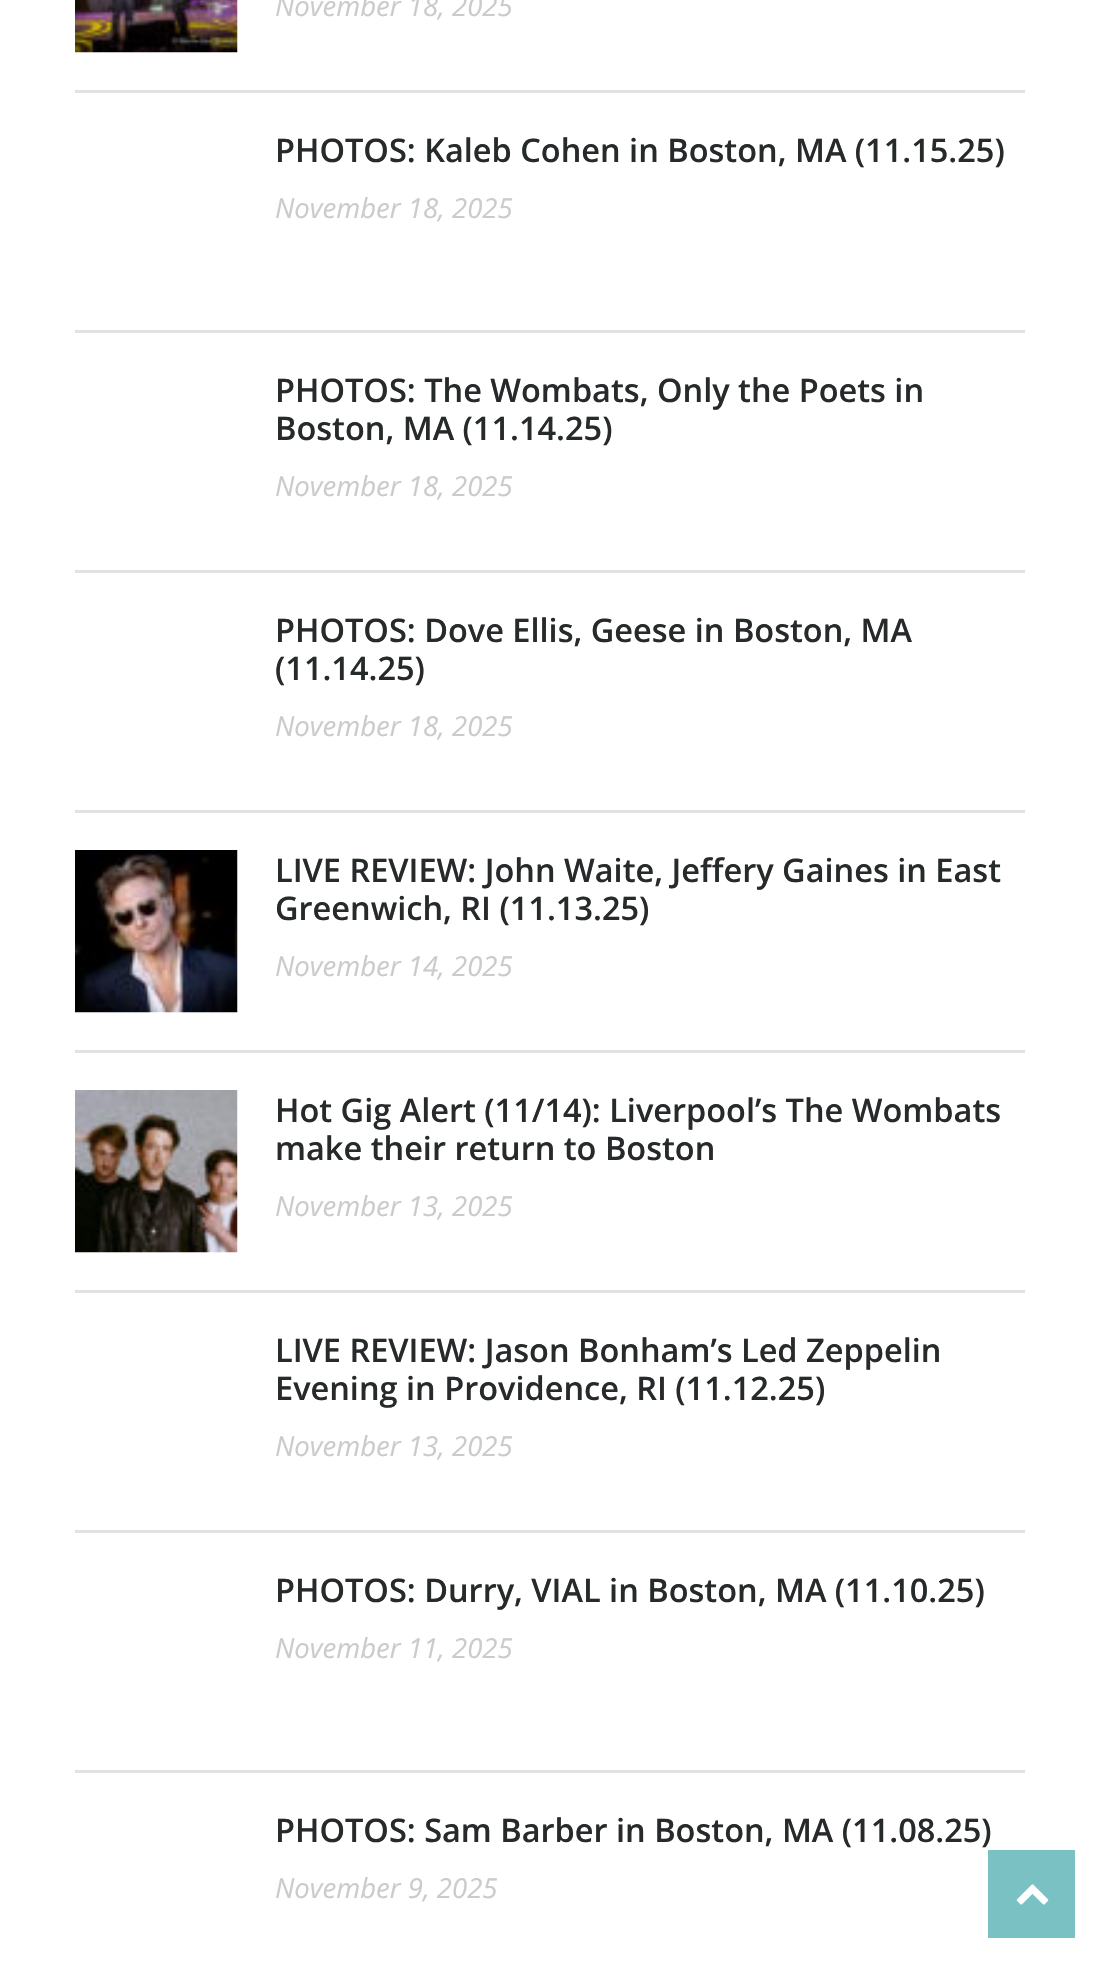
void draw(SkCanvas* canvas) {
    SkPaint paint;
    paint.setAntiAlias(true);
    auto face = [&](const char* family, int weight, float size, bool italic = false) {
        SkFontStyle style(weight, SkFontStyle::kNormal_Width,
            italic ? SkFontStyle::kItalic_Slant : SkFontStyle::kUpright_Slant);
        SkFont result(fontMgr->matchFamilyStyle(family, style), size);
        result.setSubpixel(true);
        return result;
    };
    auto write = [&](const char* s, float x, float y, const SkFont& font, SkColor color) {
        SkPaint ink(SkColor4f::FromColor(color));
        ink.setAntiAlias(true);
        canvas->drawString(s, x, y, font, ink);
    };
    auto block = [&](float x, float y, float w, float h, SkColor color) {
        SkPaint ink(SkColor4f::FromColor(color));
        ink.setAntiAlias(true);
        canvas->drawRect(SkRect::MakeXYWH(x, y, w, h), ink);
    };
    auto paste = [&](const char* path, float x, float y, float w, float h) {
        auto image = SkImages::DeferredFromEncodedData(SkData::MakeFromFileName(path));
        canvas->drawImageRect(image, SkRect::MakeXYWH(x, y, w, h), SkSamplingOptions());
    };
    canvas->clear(SK_ColorWHITE);
    block(75, 90, 950, 3, SkColorSetRGB(225, 226, 227));
    paste("pic1.png", 75, 0, 163, 53);
    auto kFont1 = face("Open Sans", 400, 27.5f, true);
    write("November 18, 2025", 275, 16, kFont1, SkColorSetRGB(203, 203, 203));
    block(75, 330, 950, 3, SkColorSetRGB(225, 226, 227));
    auto kFont2 = face("Open Sans", 600, 32.5f);
    write("PHOTOS: Kaleb Cohen in Boston, MA (11.15.25)", 275, 162, kFont2, SkColorSetRGB(38, 42, 43));
    write("November 18, 2025", 275, 218, kFont1, SkColorSetRGB(203, 203, 203));
    block(75, 570, 950, 3, SkColorSetRGB(225, 226, 227));
    write("PHOTOS: The Wombats, Only the Poets in", 275, 402, kFont2, SkColorSetRGB(38, 42, 43));
    write("Boston, MA (11.14.25)", 275, 440, kFont2, SkColorSetRGB(38, 42, 43));
    write("November 18, 2025", 275, 496, kFont1, SkColorSetRGB(203, 203, 203));
    block(75, 810, 950, 3, SkColorSetRGB(225, 226, 227));
    write("PHOTOS: Dove Ellis, Geese in Boston, MA", 275, 642, kFont2, SkColorSetRGB(38, 42, 43));
    write("(11.14.25)", 275, 680, kFont2, SkColorSetRGB(38, 42, 43));
    write("November 18, 2025", 275, 736, kFont1, SkColorSetRGB(203, 203, 203));
    block(75, 1050, 950, 3, SkColorSetRGB(225, 226, 227));
    paste("pic2.png", 75, 850, 163, 163);
    write("LIVE REVIEW: John Waite, Jeffery Gaines in East", 275, 882, kFont2, SkColorSetRGB(38, 42, 43));
    write("Greenwich, RI (11.13.25)", 275, 920, kFont2, SkColorSetRGB(38, 42, 43));
    write("November 14, 2025", 275, 976, kFont1, SkColorSetRGB(203, 203, 203));
    block(75, 1290, 950, 3, SkColorSetRGB(225, 226, 227));
    paste("pic3.png", 75, 1090, 163, 163);
    write("Hot Gig Alert (11/14): Liverpool’s The Wombats", 275, 1122, kFont2, SkColorSetRGB(38, 42, 43));
    write("make their return to Boston", 275, 1160, kFont2, SkColorSetRGB(38, 42, 43));
    write("November 13, 2025", 275, 1216, kFont1, SkColorSetRGB(203, 203, 203));
    block(75, 1530, 950, 3, SkColorSetRGB(225, 226, 227));
    write("LIVE REVIEW: Jason Bonham’s Led Zeppelin", 275, 1362, kFont2, SkColorSetRGB(38, 42, 43));
    write("Evening in Providence, RI (11.12.25)", 275, 1400, kFont2, SkColorSetRGB(38, 42, 43));
    write("November 13, 2025", 275, 1456, kFont1, SkColorSetRGB(203, 203, 203));
    block(75, 1770, 950, 3, SkColorSetRGB(225, 226, 227));
    write("PHOTOS: Durry, VIAL in Boston, MA (11.10.25)", 275, 1602, kFont2, SkColorSetRGB(38, 42, 43));
    write("November 11, 2025", 275, 1658, kFont1, SkColorSetRGB(203, 203, 203));
    write("PHOTOS: Sam Barber in Boston, MA (11.08.25)", 275, 1842, kFont2, SkColorSetRGB(38, 42, 43));
    write("November 9, 2025", 275, 1898, kFont1, SkColorSetRGB(203, 203, 203));
    block(988, 1850, 87, 88, SkColorSetRGB(122, 193, 196));
    paste("pic4.png", 1016, 1884, 33, 21);
}
